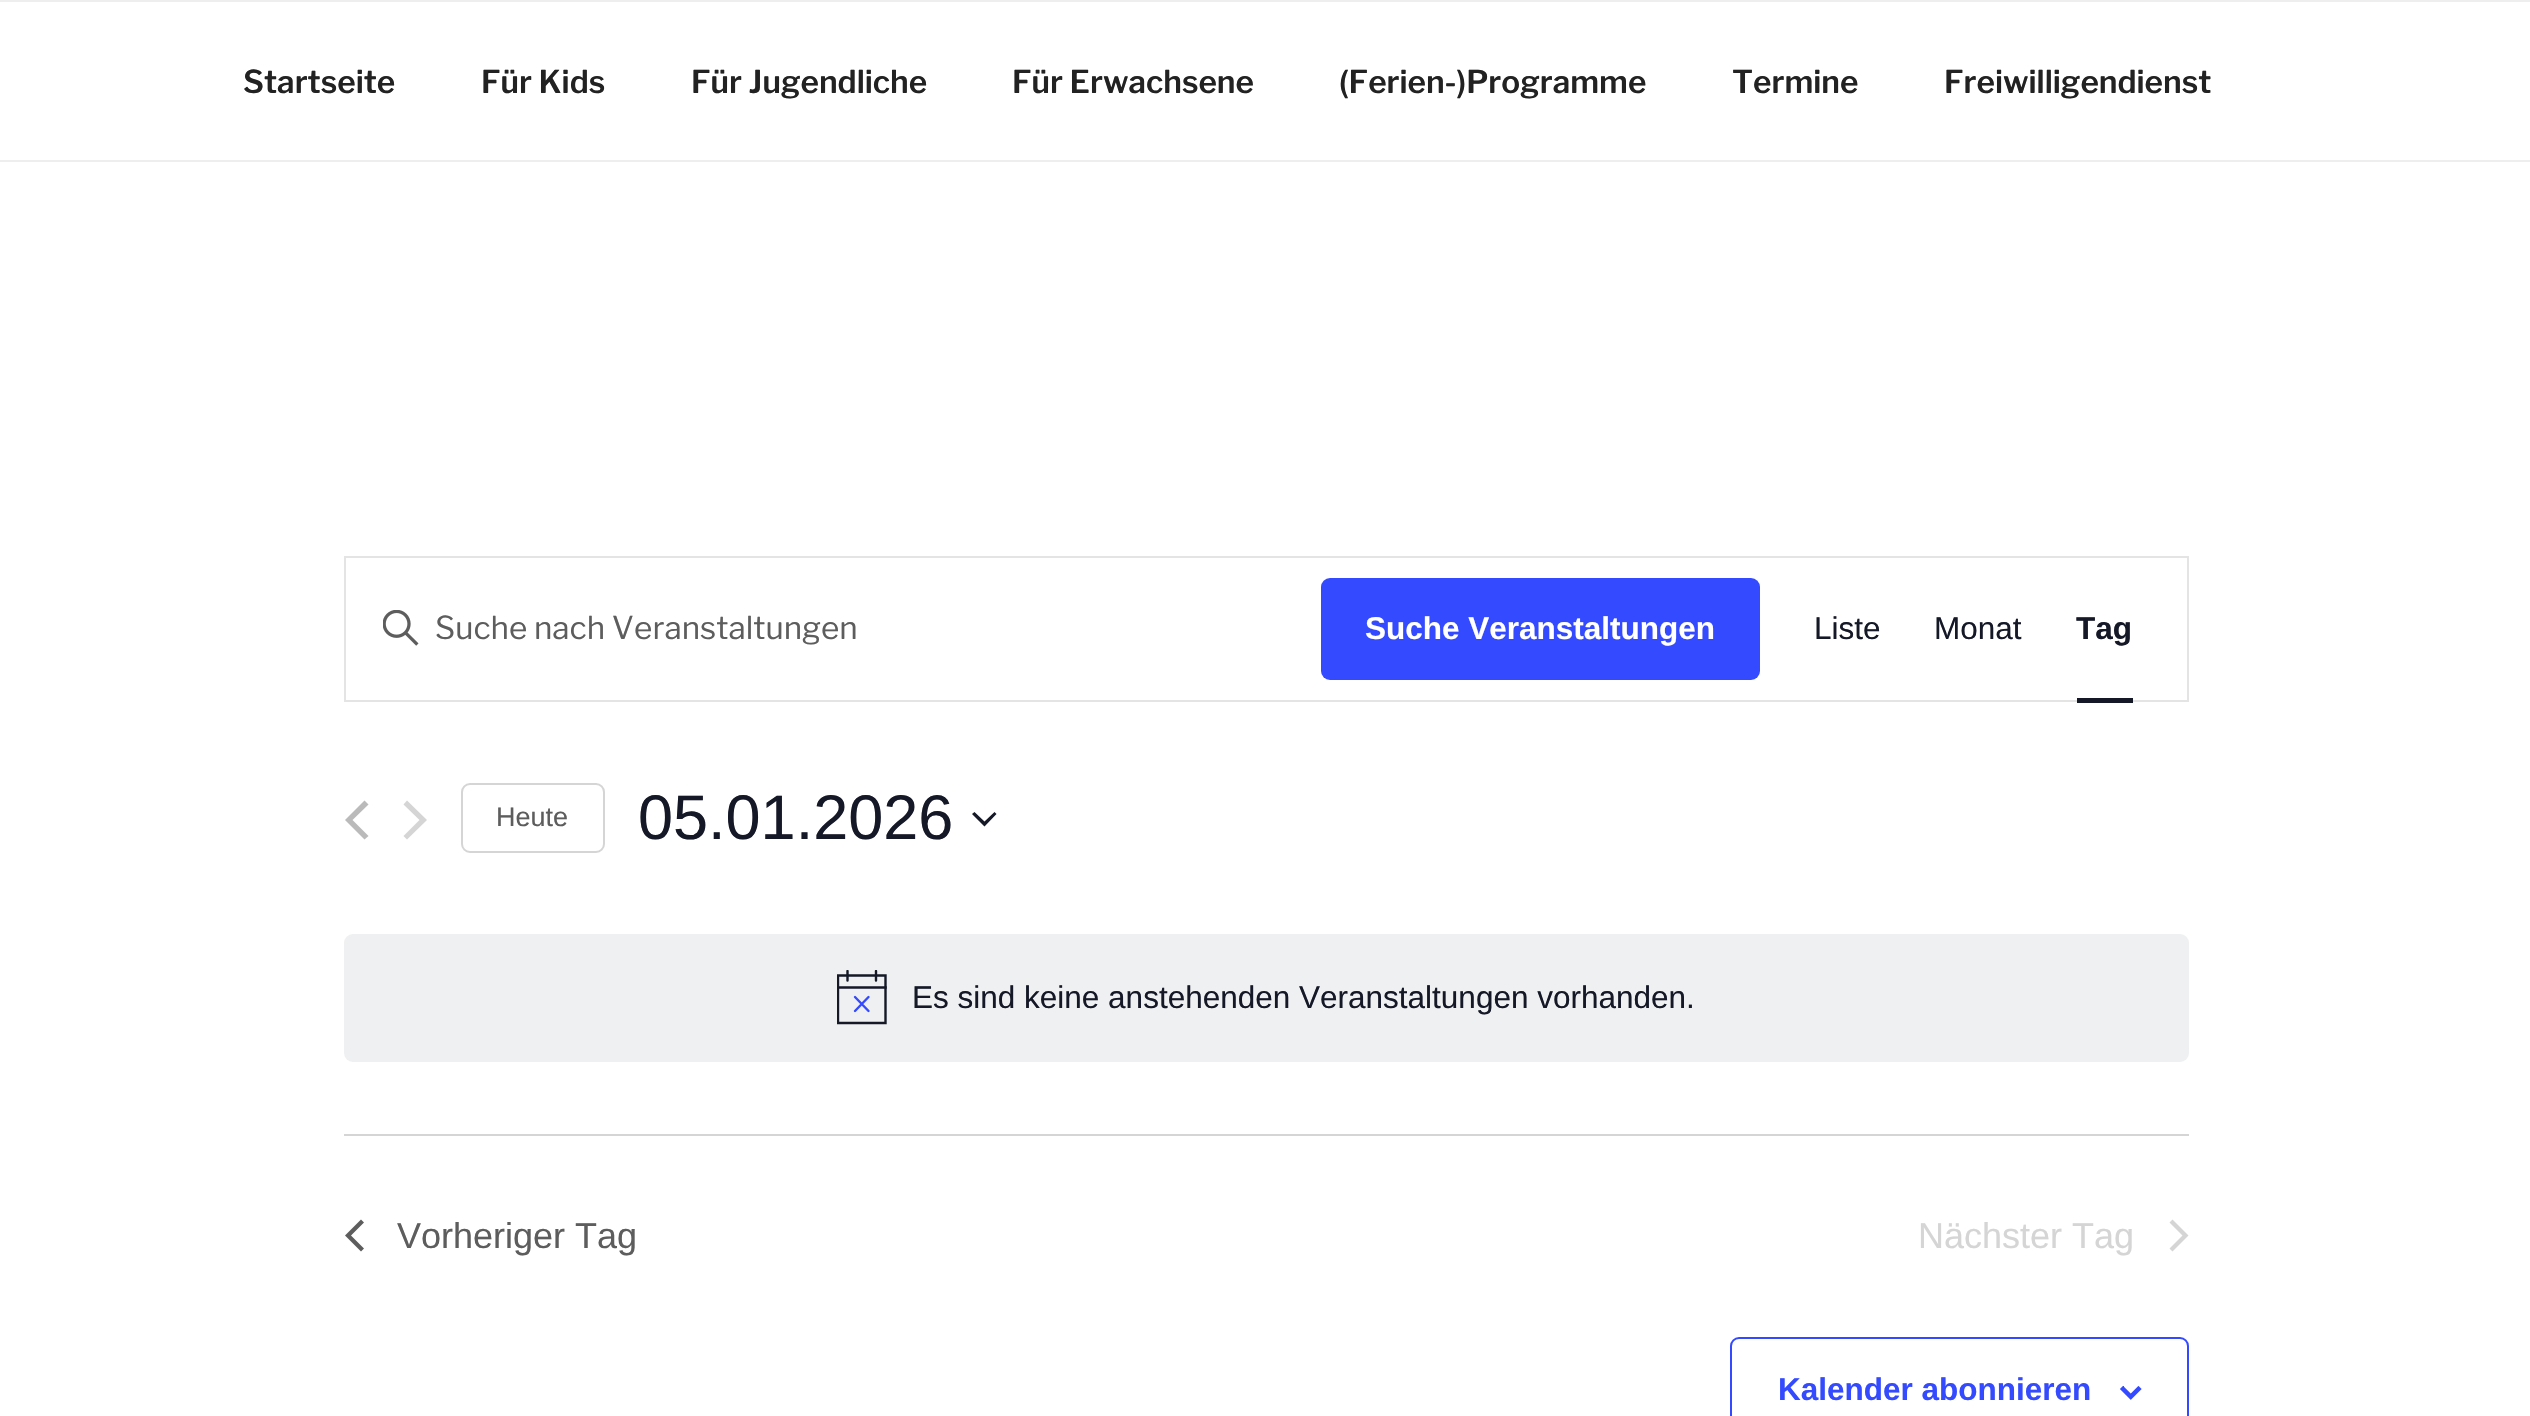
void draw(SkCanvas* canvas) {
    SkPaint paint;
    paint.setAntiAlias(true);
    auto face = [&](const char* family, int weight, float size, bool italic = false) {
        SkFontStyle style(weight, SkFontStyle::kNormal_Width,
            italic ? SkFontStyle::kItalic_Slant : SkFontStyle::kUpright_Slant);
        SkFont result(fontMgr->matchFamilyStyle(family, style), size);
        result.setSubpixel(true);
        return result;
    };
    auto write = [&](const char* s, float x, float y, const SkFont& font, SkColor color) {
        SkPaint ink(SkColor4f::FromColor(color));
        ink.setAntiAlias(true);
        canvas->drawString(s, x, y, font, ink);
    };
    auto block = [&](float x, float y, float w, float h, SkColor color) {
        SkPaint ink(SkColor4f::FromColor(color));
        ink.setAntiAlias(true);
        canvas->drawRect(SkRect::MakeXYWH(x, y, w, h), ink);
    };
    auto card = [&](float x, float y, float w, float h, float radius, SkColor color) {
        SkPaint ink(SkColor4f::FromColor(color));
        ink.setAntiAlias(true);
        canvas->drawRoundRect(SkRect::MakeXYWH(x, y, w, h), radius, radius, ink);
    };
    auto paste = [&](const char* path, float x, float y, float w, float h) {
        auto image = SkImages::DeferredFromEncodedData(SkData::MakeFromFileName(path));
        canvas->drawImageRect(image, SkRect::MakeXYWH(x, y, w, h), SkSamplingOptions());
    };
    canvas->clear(SK_ColorWHITE);
    block(0, 0, 2530, 2, SkColorSetRGB(238, 238, 238));
    block(0, 160, 2530, 2, SkColorSetRGB(238, 238, 238));
    auto kFont1 = face("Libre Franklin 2", 100, 31.5f);
    write("Startseite", 243, 93, kFont1, SkColorSetRGB(34, 34, 34));
    write("Für Kids", 481, 93, kFont1, SkColorSetRGB(34, 34, 34));
    write("Für Jugendliche", 691, 93, kFont1, SkColorSetRGB(34, 34, 34));
    write("Für Erwachsene", 1012, 93, kFont1, SkColorSetRGB(34, 34, 34));
    write("(Ferien-)Programme", 1339, 93, kFont1, SkColorSetRGB(34, 34, 34));
    write("Termine", 1732, 93, kFont1, SkColorSetRGB(34, 34, 34));
    write("Freiwilligendienst", 1944, 93, kFont1, SkColorSetRGB(34, 34, 34));
    paint.setStyle(SkPaint::kStroke_Style);
    paint.setStrokeWidth(2);
    paint.setColor(SkColorSetRGB(228, 228, 228));
    canvas->drawRect(SkRect::MakeXYWH(345, 557, 1843, 144), paint);
    paste("pic1.png", 383, 610, 36, 36);
    auto kFont2 = face("Libre Franklin", 100, 31.5f);
    write("Suche nach Veranstaltungen", 435, 639, kFont2, SkColorSetRGB(93, 93, 93));
    card(1321, 578, 439, 102, 9, SkColorSetRGB(51, 74, 255));
    auto kFont3 = face("Liberation Sans", 700, 31.5f);
    write("Suche Veranstaltungen", 1365, 639, kFont3, SK_ColorWHITE);
    auto kFont4 = face("Liberation Sans", 400, 31.5f);
    write("Liste", 1814, 639, kFont4, SkColorSetRGB(20, 24, 39));
    write("Monat", 1934, 639, kFont4, SkColorSetRGB(20, 24, 39));
    write("Tag", 2076, 639, kFont3, SkColorSetRGB(20, 24, 39));
    block(2077, 698, 56, 5, SkColorSetRGB(20, 24, 39));
    paint.setStyle(SkPaint::kFill_Style);
    paint.setColor(SkColorSetRGB(186, 186, 186));
    canvas->drawPath(SkPathBuilder().moveTo(368.5f, 836).lineTo(364.5f, 839.5f).lineTo(345, 820).lineTo(364.5f, 800.5f).lineTo(368.5f, 804.5f).lineTo(352.5f, 820).close().detach(), paint);
    paint.setColor(SkColorSetRGB(213, 213, 213));
    canvas->drawPath(SkPathBuilder().moveTo(403.5f, 804.5f).lineTo(407, 800.5f).lineTo(427, 820).lineTo(407, 839.5f).lineTo(403.5f, 836).lineTo(419.5f, 820).close().detach(), paint);
    paint.setStyle(SkPaint::kStroke_Style);
    canvas->drawRoundRect(SkRect::MakeXYWH(462, 784, 142, 68), 8, 8, paint);
    auto kFont5 = face("Liberation Sans", 400, 27);
    write("Heute", 496, 826, kFont5, SkColorSetRGB(93, 93, 93));
    auto kFont6 = face("Liberation Sans", 400, 63);
    write("05.01.2026", 638, 839, kFont6, SkColorSetRGB(20, 24, 39));
    paint.setStyle(SkPaint::kFill_Style);
    paint.setColor(SkColorSetRGB(20, 24, 39));
    canvas->drawPath(SkPathBuilder(SkPathFillType::kEvenOdd).moveTo(974.5f, 812).lineTo(984.5f, 821.5f).lineTo(994.5f, 812).lineTo(996.5f, 814).lineTo(984.5f, 826.5f).lineTo(972, 814).close().detach(), paint);
    card(344, 934, 1845, 128, 9, SkColorSetRGB(239, 240, 241));
    canvas->save();
    canvas->clipRect(SkRect::MakeXYWH(837, 970, 50, 56));
    paint.setStyle(SkPaint::kStroke_Style);
    paint.setStrokeWidth(2.4f);
    canvas->drawPath(SkPathBuilder().moveTo(838, 975.5f).lineTo(885.5f, 975.5f).lineTo(885.5f, 1023).lineTo(838, 1023).close().detach(), paint);
    canvas->restore();
    paint.setStrokeCap(SkPaint::kRound_Cap);
    paint.setColor(SkColorSetRGB(51, 74, 255));
    canvas->drawPath(SkPathBuilder().moveTo(855, 997).lineTo(868.5f, 1011).moveTo(868.5f, 997).lineTo(855, 1011).detach(), paint);
    canvas->save();
    canvas->clipRect(SkRect::MakeXYWH(837, 970, 50, 56));
    paint.setColor(SkColorSetRGB(20, 24, 39));
    canvas->drawPath(SkPathBuilder().moveTo(847.5f, 971).lineTo(847.5f, 980.5f).moveTo(876, 971).lineTo(876, 980.5f).detach(), paint);
    paint.setStrokeCap(SkPaint::kSquare_Cap);
    canvas->drawPath(SkPathBuilder().moveTo(838, 987.5f).lineTo(885.5f, 987.5f).detach(), paint);
    canvas->restore();
    write("Es sind keine anstehenden Veranstaltungen vorhanden.", 912, 1008, kFont4, SkColorSetRGB(20, 24, 39));
    block(344, 1134, 1845, 2, SkColorSetRGB(213, 213, 213));
    paint.setStyle(SkPaint::kFill_Style);
    paint.setColor(SkColorSetRGB(93, 93, 93));
    canvas->drawPath(SkPathBuilder().moveTo(364, 1248.5f).lineTo(361, 1251.5f).lineTo(345, 1235.5f).lineTo(361, 1219.5f).lineTo(364, 1222.5f).lineTo(351, 1235.5f).close().detach(), paint);
    auto kFont7 = face("Liberation Sans", 400, 36);
    write("Vorheriger Tag", 397, 1248, kFont7, SkColorSetRGB(93, 93, 93));
    write("Nächster Tag", 1918, 1248, kFont7, SkColorSetRGB(213, 213, 213));
    paint.setColor(SkColorSetRGB(213, 213, 213));
    canvas->drawPath(SkPathBuilder().moveTo(2169.5f, 1222.5f).lineTo(2172.5f, 1219.5f).lineTo(2188.5f, 1235.5f).lineTo(2172.5f, 1251.5f).lineTo(2169.5f, 1248.5f).lineTo(2182.5f, 1235.5f).close().detach(), paint);
    paint.setStyle(SkPaint::kStroke_Style);
    paint.setStrokeWidth(2);
    paint.setStrokeCap(SkPaint::kButt_Cap);
    paint.setColor(SkColorSetRGB(51, 74, 255));
    canvas->drawRoundRect(SkRect::MakeXYWH(1731, 1338, 457, 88), 8, 8, paint);
    write("Kalender abonnieren", 1778, 1400, kFont3, SkColorSetRGB(51, 74, 255));
    paste("pic2.png", 2120, 1386, 22, 14);
}
